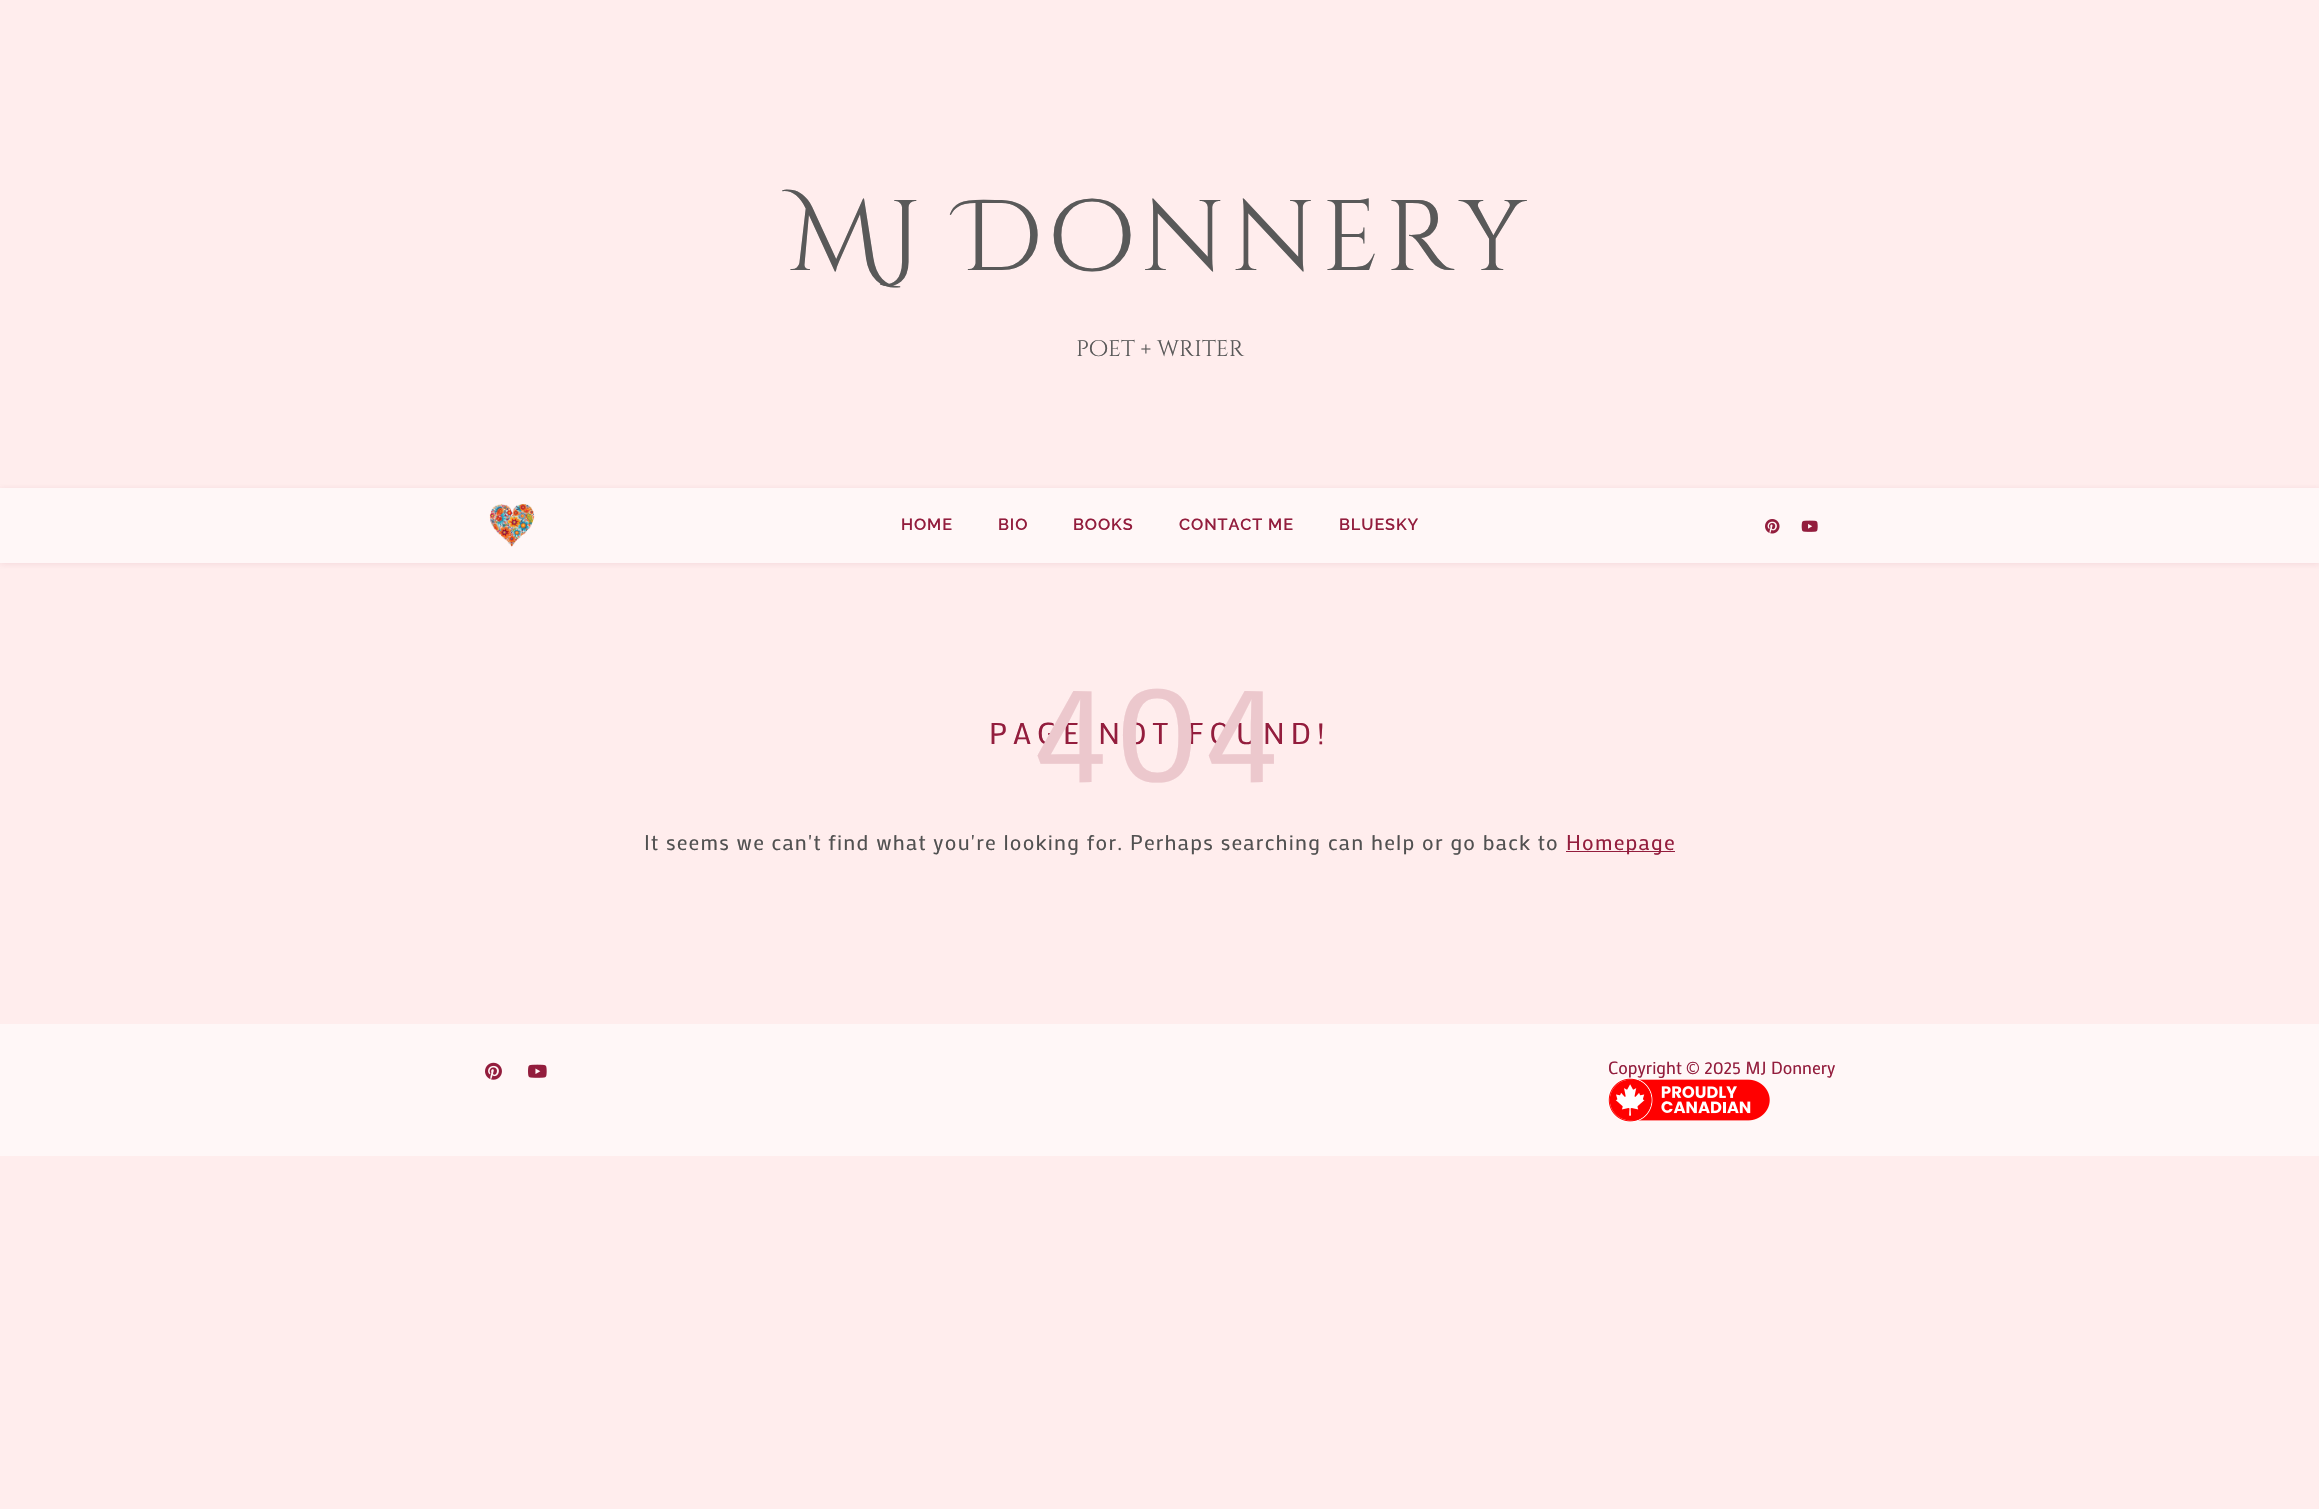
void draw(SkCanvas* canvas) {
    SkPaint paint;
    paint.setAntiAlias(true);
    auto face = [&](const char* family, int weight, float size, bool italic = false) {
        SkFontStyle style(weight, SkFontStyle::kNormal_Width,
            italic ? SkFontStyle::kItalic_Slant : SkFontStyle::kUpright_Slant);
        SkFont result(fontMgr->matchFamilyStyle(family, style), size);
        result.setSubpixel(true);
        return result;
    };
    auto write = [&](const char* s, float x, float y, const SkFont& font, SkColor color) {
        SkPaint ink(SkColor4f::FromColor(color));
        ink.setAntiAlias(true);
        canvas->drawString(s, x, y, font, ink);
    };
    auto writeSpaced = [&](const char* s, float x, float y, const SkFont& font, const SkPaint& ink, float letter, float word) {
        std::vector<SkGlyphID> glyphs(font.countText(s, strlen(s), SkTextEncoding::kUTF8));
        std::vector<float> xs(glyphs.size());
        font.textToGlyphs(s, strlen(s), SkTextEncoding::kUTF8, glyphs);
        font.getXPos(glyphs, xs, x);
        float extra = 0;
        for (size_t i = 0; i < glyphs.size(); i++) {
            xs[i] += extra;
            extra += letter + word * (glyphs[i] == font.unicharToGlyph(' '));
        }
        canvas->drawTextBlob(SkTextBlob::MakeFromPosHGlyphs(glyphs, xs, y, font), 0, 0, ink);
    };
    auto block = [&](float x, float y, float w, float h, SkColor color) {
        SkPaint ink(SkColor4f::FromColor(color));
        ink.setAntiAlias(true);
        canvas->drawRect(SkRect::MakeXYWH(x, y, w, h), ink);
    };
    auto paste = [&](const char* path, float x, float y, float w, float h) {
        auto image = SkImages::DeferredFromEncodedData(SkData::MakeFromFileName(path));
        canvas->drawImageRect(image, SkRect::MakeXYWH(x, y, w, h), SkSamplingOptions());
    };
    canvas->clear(SkColorSetRGB(255, 237, 237));
    auto kFont1 = face("Cinzel Decorative", 400, 100);
    paint.setColor(SkColorSetRGB(89, 89, 89));
    writeSpaced("MJ Donnery", 789, 270, kFont1, paint, 6.25f, 0);
    auto kFont2 = face("Cinzel Decorative", 400, 22.5f);
    write("poet + writer", 1076, 356, kFont2, SkColorSetRGB(89, 89, 89));
    paint.setColor(SkColorSetARGB(26, 147, 29, 61));
    paint.setMaskFilter(SkMaskFilter::MakeBlur(kNormal_SkBlurStyle, 3));
    canvas->drawRect(SkRect::MakeXYWH(0, 489, 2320, 75), paint);
    paint.setMaskFilter(nullptr);
    block(0, 488, 2319, 75, SkColorSetRGB(255, 247, 247));
    paste("pic1.png", 489, 504, 46, 43);
    auto kFont3 = face("Raleway", 600, 16.25f);
    paint.setColor(SkColorSetRGB(147, 29, 61));
    writeSpaced("HOME", 901, 530, kFont3, paint, 0.9f, 0);
    writeSpaced("BIO", 998, 530, kFont3, paint, 0.9f, 0);
    writeSpaced("BOOKS", 1073, 530, kFont3, paint, 0.9f, 0);
    writeSpaced("CONTACT ME", 1179, 530, kFont3, paint, 0.9f, 0);
    writeSpaced("BLUESKY", 1339, 530, kFont3, paint, 0.9f, 0);
    paste("pic2.png", 1765, 519, 15, 15);
    paste("pic3.png", 1801, 520, 17, 12);
    auto kFont4 = face("Mako", 400, 30);
    writeSpaced("PAGE NOT FOUND!", 989, 744, kFont4, paint, 6, 0);
    auto kFont5 = face("Mako", 400, 138);
    paint.setColor(SkColorSetRGB(236, 200, 205));
    writeSpaced("404", 1035, 781, kFont5, paint, 6, 0);
    auto kFont6 = face("Mako", 400, 21.25f);
    paint.setColor(SkColorSetRGB(81, 81, 81));
    writeSpaced("It seems we can't find what you're looking for. Perhaps searching can help or go back to", 644, 850, kFont6, paint, 1.25f, 0);
    block(1566, 851, 109, 1, SkColorSetRGB(147, 29, 61));
    paint.setColor(SkColorSetRGB(147, 29, 61));
    writeSpaced("Homepage", 1566, 850, kFont6, paint, 1.25f, 0);
    block(0, 1024, 2319, 132, SkColorSetRGB(255, 247, 247));
    paste("pic4.png", 485, 1062, 17, 18);
    paste("pic5.png", 528, 1064, 19, 14);
    auto kFont7 = face("Mako", 400, 17.5f);
    write("Copyright © 2025 MJ Donnery", 1608, 1074, kFont7, SkColorSetRGB(147, 29, 61));
    paste("pic6.png", 1608, 1078, 162, 44);
}
